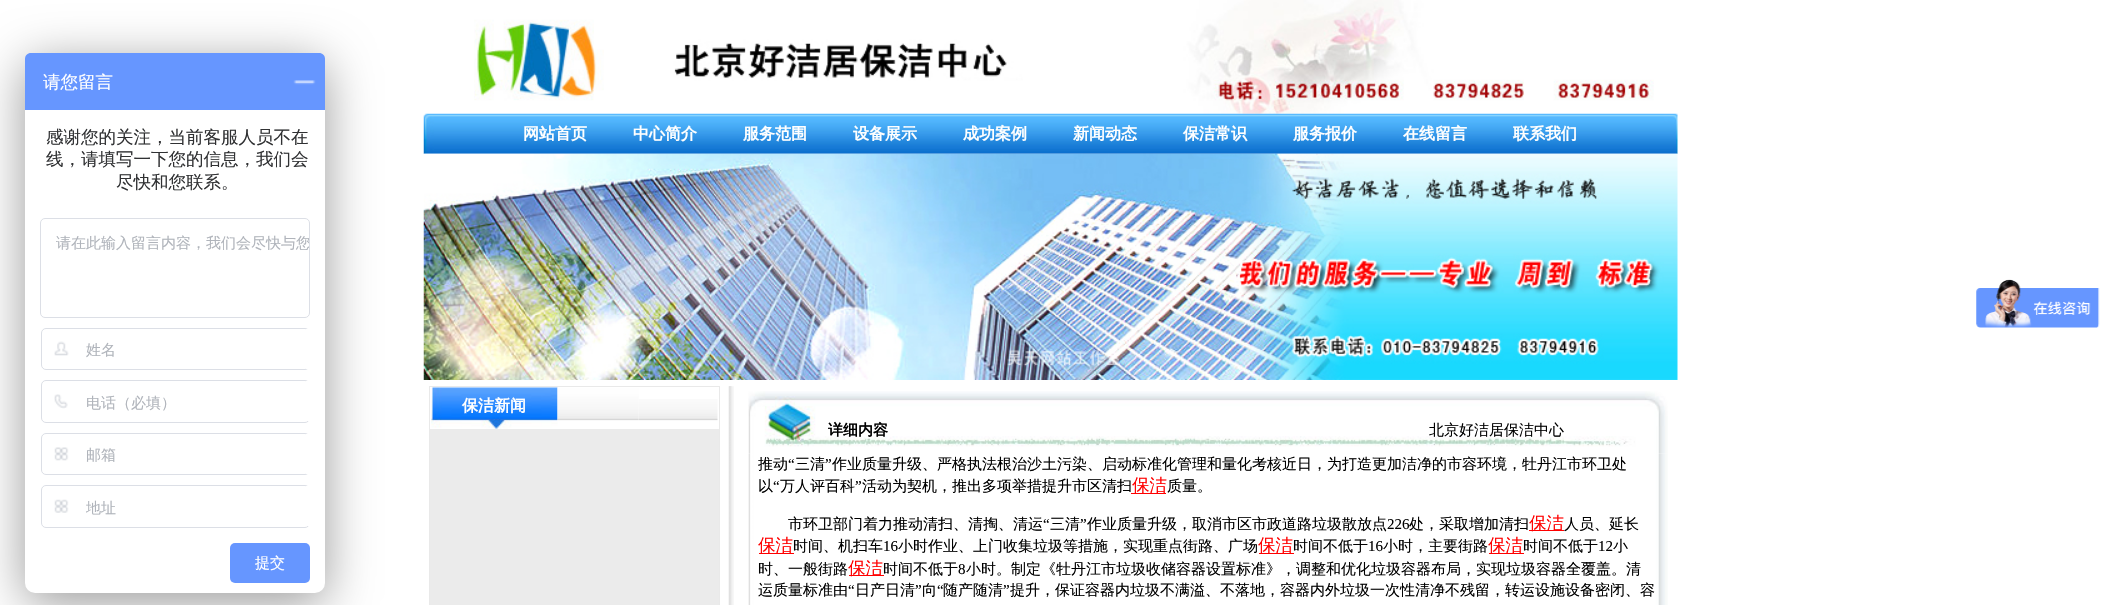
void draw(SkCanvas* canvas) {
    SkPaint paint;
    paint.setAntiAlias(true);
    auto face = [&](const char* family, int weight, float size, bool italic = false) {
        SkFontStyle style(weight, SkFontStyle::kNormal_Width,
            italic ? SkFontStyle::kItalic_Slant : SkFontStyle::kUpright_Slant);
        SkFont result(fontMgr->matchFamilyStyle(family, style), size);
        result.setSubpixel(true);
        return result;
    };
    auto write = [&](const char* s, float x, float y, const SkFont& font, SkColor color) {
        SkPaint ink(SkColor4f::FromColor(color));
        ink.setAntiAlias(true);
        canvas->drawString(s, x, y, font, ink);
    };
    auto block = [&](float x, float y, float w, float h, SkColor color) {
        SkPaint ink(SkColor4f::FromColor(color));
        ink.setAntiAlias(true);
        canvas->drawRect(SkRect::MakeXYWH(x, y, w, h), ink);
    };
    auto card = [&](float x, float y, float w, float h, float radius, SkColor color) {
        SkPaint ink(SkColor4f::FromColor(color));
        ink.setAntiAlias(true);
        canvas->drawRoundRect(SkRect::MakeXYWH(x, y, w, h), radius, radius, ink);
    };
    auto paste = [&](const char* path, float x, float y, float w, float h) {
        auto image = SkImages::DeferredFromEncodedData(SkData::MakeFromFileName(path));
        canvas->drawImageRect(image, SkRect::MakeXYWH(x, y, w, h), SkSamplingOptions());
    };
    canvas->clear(SK_ColorWHITE);
    paint.setColor(SkColorSetARGB(102, 0, 0, 0));
    paint.setMaskFilter(SkMaskFilter::MakeBlur(kNormal_SkBlurStyle, 25));
    canvas->drawRoundRect(SkRect::MakeXYWH(25, 63, 300, 540), 10, 10, paint);
    paint.setMaskFilter(nullptr);
    card(25, 53, 300, 540, 10, SK_ColorWHITE);
    paint.setColor(SkColorSetRGB(102, 150, 255));
    canvas->drawPath(SkPathBuilder().moveTo(31, 53).lineTo(319, 53).cubicTo(322.5f, 53, 325, 55.5f, 325, 59).lineTo(325, 110).lineTo(25, 110).lineTo(25, 59).cubicTo(25, 55.5f, 27.5f, 53, 31, 53).close().detach(), paint);
    auto kFont1 = face("WenQuanYi Zen Hei", 500, 17.5f);
    write("请您留言", 43, 88, kFont1, SK_ColorWHITE);
    paste("pic1.png", 293, 80, 23, 5);
    write("感谢您的关注，当前客服人员不在", 46, 143, kFont1, SkColorSetRGB(48, 49, 51));
    write("线，请填写一下您的信息，我们会", 46, 165, kFont1, SkColorSetRGB(48, 49, 51));
    write("尽快和您联系。", 116, 188, kFont1, SkColorSetRGB(48, 49, 51));
    paint.setStyle(SkPaint::kStroke_Style);
    paint.setStrokeWidth(1);
    paint.setColor(SkColorSetRGB(220, 223, 230));
    canvas->drawRoundRect(SkRect::MakeXYWH(40.5f, 218.5f, 269, 99), 4.5f, 4.5f, paint);
    canvas->save();
    canvas->clipPath(SkPathBuilder().moveTo(45, 219).lineTo(305, 219).cubicTo(307, 219, 309, 221, 309, 223).lineTo(309, 312).cubicTo(309, 314, 307, 316, 305, 316).lineTo(45, 316).cubicTo(43, 316, 41, 314, 41, 312).lineTo(41, 223).cubicTo(41, 221, 43, 219, 45, 219).close().detach(), true);
    auto kFont2 = face("WenQuanYi Zen Hei", 500, 15);
    write("请在此输入留言内容，我们会尽快与您", 56, 248, kFont2, SkColorSetRGB(176, 180, 187));
    canvas->restore();
    canvas->drawRoundRect(SkRect::MakeXYWH(41.5f, 328.5f, 268, 41), 4.5f, 4.5f, paint);
    paste("pic2.png", 54, 341, 15, 15);
    block(306, 329, 4, 40, SK_ColorWHITE);
    write("姓名", 86, 355, kFont2, SkColorSetRGB(176, 180, 187));
    canvas->drawRoundRect(SkRect::MakeXYWH(41.5f, 380.5f, 268, 42), 4.5f, 4.5f, paint);
    paste("pic3.png", 54, 394, 14, 15);
    block(306, 381, 4, 40, SK_ColorWHITE);
    write("电话（必填）", 86, 408, kFont2, SkColorSetRGB(176, 180, 187));
    canvas->drawRoundRect(SkRect::MakeXYWH(41.5f, 433.5f, 268, 41), 4.5f, 4.5f, paint);
    paste("pic4.png", 54, 447, 15, 14);
    block(306, 434, 4, 40, SK_ColorWHITE);
    write("邮箱", 86, 460, kFont2, SkColorSetRGB(176, 180, 187));
    canvas->drawRoundRect(SkRect::MakeXYWH(41.5f, 485.5f, 268, 42), 4.5f, 4.5f, paint);
    paste("pic5.png", 54, 499, 15, 14);
    block(306, 486, 4, 40, SK_ColorWHITE);
    write("地址", 86, 513, kFont2, SkColorSetRGB(176, 180, 187));
    card(230, 543, 80, 40, 5, SkColorSetRGB(102, 150, 255));
    write("提交", 255, 568, kFont2, SK_ColorWHITE);
    paste("pic6.png", 1976, 279, 124, 49);
    paste("pic7.png", 474, 0, 1180, 114);
    paste("pic8.png", 423, 113, 1255, 41);
    auto kFont3 = face("WenQuanYi Zen Hei", 700, 16);
    write("网站首页", 523, 139, kFont3, SK_ColorWHITE);
    write("中心简介", 633, 139, kFont3, SK_ColorWHITE);
    write("服务范围", 743, 139, kFont3, SK_ColorWHITE);
    write("设备展示", 853, 139, kFont3, SK_ColorWHITE);
    write("成功案例", 963, 139, kFont3, SK_ColorWHITE);
    write("新闻动态", 1073, 139, kFont3, SK_ColorWHITE);
    write("保洁常识", 1183, 139, kFont3, SK_ColorWHITE);
    write("服务报价", 1293, 139, kFont3, SK_ColorWHITE);
    write("在线留言", 1403, 139, kFont3, SK_ColorWHITE);
    write("联系我们", 1513, 139, kFont3, SK_ColorWHITE);
    paste("pic9.png", 423, 153, 1255, 227);
    paint.setColor(SkColorSetRGB(233, 233, 233));
    canvas->drawRect(SkRect::MakeXYWH(429.5f, 386.5f, 290, 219), paint);
    paste("pic10.png", 431, 387, 127, 42);
    write("保洁新闻", 462, 411, kFont3, SK_ColorWHITE);
    paste("pic11.png", 557, 387, 82, 34);
    paste("pic12.png", 639, 399, 79, 22);
    block(430, 429, 289, 176, SkColorSetRGB(235, 235, 235));
    paste("pic13.png", 728, 386, 6, 219);
    paste("pic14.png", 729, 386, 3, 1);
    paste("pic15.png", 748, 391, 920, 63);
    auto kFont4 = face("WenQuanYi Zen Hei", 700, 15);
    write("详细内容", 828, 435, kFont4, SK_ColorBLACK);
    write("北京好洁居保洁中心", 1429, 435, kFont2, SK_ColorBLACK);
    paste("pic16.png", 748, 454, 920, 151);
    write("推动", 758, 469, kFont2, SK_ColorBLACK);
    auto kFont5 = face("Liberation Serif", 400, 15);
    write("“", 788, 469, kFont5, SK_ColorBLACK);
    write("三清", 795, 469, kFont2, SK_ColorBLACK);
    write("”", 825, 469, kFont5, SK_ColorBLACK);
    write("作业质量升级、严格执法根治沙土污染、启动标准化管理和量化考核近日，为打造更加洁净的市容环境，牡丹江市环卫处", 832, 469, kFont2, SK_ColorBLACK);
    write("以", 758, 491, kFont2, SK_ColorBLACK);
    write("“", 773, 491, kFont5, SK_ColorBLACK);
    write("万人评百科", 780, 491, kFont2, SK_ColorBLACK);
    write("”", 855, 491, kFont5, SK_ColorBLACK);
    write("活动为契机，推出多项举措提升市区清扫", 862, 491, kFont2, SK_ColorBLACK);
    block(1131, 493, 35, 1, SkColorSetRGB(255, 0, 0));
    write("保洁", 1132, 491, kFont1, SkColorSetRGB(255, 0, 0));
    write("质量。", 1167, 491, kFont2, SK_ColorBLACK);
    write("市环卫部门着力推动清扫、清掏、清运", 788, 529, kFont2, SK_ColorBLACK);
    write("“", 1043, 529, kFont5, SK_ColorBLACK);
    write("三清", 1050, 529, kFont2, SK_ColorBLACK);
    write("”", 1080, 529, kFont5, SK_ColorBLACK);
    write("作业质量升级，取消市区市政道路垃圾散放点", 1087, 529, kFont2, SK_ColorBLACK);
    write("226", 1387, 529, kFont5, SK_ColorBLACK);
    write("处，采取增加清扫", 1409, 529, kFont2, SK_ColorBLACK);
    block(1529, 530, 35, 1, SkColorSetRGB(255, 0, 0));
    write("保洁", 1529, 529, kFont1, SkColorSetRGB(255, 0, 0));
    write("人员、延长", 1564, 529, kFont2, SK_ColorBLACK);
    block(759, 553, 35, 1, SkColorSetRGB(255, 0, 0));
    write("保洁", 758, 551, kFont1, SkColorSetRGB(255, 0, 0));
    write("时间、机扫车", 793, 551, kFont2, SK_ColorBLACK);
    write("16", 883, 551, kFont5, SK_ColorBLACK);
    write("小时作业、上门收集垃圾等措施，实现重点街路、广场", 898, 551, kFont2, SK_ColorBLACK);
    block(1259, 553, 35, 1, SkColorSetRGB(255, 0, 0));
    write("保洁", 1258, 551, kFont1, SkColorSetRGB(255, 0, 0));
    write("时间不低于", 1293, 551, kFont2, SK_ColorBLACK);
    write("16", 1368, 551, kFont5, SK_ColorBLACK);
    write("小时，主要街路", 1383, 551, kFont2, SK_ColorBLACK);
    block(1489, 553, 35, 1, SkColorSetRGB(255, 0, 0));
    write("保洁", 1488, 551, kFont1, SkColorSetRGB(255, 0, 0));
    write("时间不低于", 1523, 551, kFont2, SK_ColorBLACK);
    write("12", 1598, 551, kFont5, SK_ColorBLACK);
    write("小", 1613, 551, kFont2, SK_ColorBLACK);
    write("时、一般街路", 758, 574, kFont2, SK_ColorBLACK);
    block(849, 575, 35, 1, SkColorSetRGB(255, 0, 0));
    write("保洁", 848, 574, kFont1, SkColorSetRGB(255, 0, 0));
    write("时间不低于", 883, 574, kFont2, SK_ColorBLACK);
    write("8", 958, 574, kFont5, SK_ColorBLACK);
    write("小时。制定《牡丹江市垃圾收储容器设置标准》，调整和优化垃圾容器布局，实现垃圾容器全覆盖。清", 966, 574, kFont2, SK_ColorBLACK);
    write("运质量标准由", 758, 595, kFont2, SK_ColorBLACK);
    write("“", 848, 595, kFont5, SK_ColorBLACK);
    write("日产日清", 855, 595, kFont2, SK_ColorBLACK);
    write("”", 915, 595, kFont5, SK_ColorBLACK);
    write("向", 922, 595, kFont2, SK_ColorBLACK);
    write("“", 937, 595, kFont5, SK_ColorBLACK);
    write("随产随清", 943, 595, kFont2, SK_ColorBLACK);
    write("”", 1003, 595, kFont5, SK_ColorBLACK);
    write("提升，保证容器内垃圾不满溢、不落地，容器内外垃圾一次性清净不残留，转运设施设备密闭、容", 1010, 595, kFont2, SK_ColorBLACK);
}
